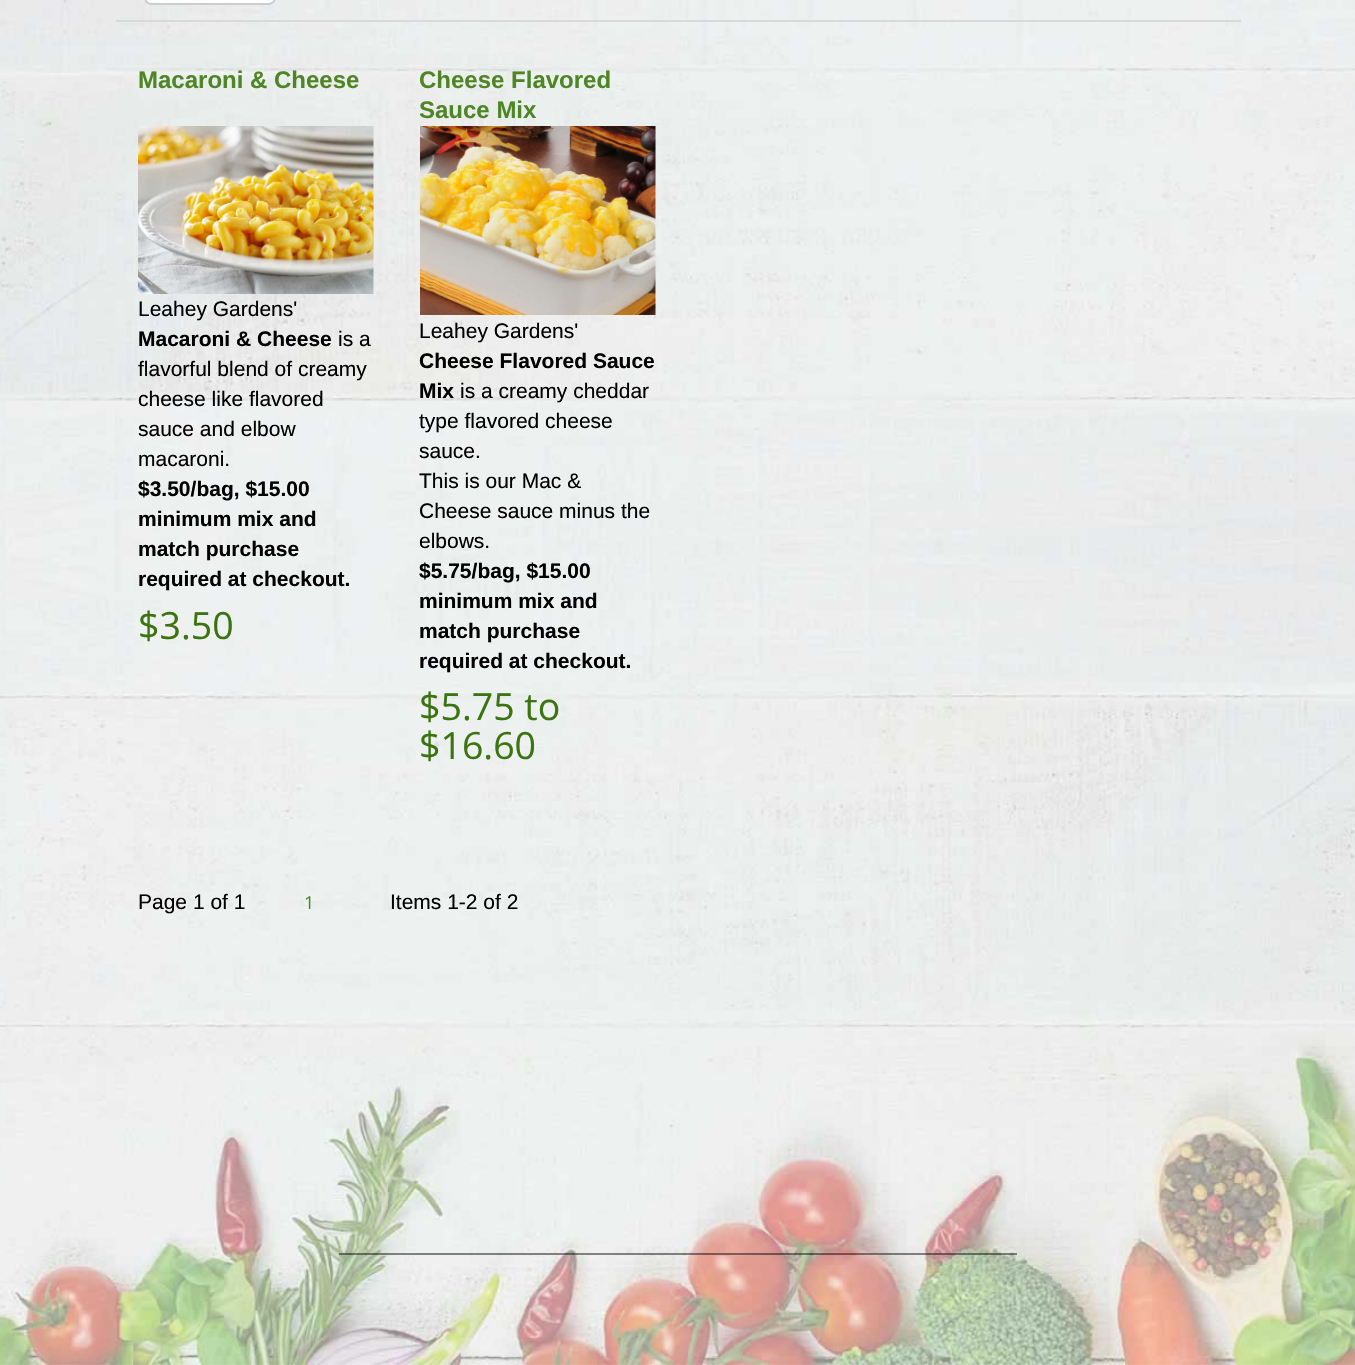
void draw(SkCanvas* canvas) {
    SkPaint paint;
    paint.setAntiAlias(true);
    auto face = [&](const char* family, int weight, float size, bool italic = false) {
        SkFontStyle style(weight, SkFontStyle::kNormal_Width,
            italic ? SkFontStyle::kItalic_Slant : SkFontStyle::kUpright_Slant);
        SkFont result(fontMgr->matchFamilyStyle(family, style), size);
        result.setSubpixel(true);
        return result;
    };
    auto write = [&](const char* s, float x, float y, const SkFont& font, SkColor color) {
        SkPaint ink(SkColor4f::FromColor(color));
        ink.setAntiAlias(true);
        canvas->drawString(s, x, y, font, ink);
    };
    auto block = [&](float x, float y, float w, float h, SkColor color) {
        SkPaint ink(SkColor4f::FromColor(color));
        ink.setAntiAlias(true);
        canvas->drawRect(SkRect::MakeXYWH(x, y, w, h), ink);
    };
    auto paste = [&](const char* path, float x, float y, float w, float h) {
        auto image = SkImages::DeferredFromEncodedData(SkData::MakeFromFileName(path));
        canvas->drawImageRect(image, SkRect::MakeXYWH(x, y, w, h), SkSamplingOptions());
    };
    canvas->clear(SK_ColorWHITE);
    paste("pic1.png", 0, 0, 1355, 1365);
    block(116, 20, 1125, 2, SkColorSetRGB(217, 217, 217));
    paint.setColor(SK_ColorWHITE);
    canvas->drawRoundRect(SkRect::MakeXYWH(145, -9, 130, 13), 7, 7, paint);
    paint.setStyle(SkPaint::kStroke_Style);
    paint.setStrokeWidth(2);
    paint.setColor(SkColorSetRGB(204, 204, 204));
    canvas->drawRoundRect(SkRect::MakeXYWH(145, -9, 130, 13), 7, 7, paint);
    auto kFont1 = face("Liberation Sans", 700, 24);
    write("Macaroni & Cheese", 138, 88, kFont1, SkColorSetRGB(78, 134, 38));
    paste("pic2.png", 138, 126, 236, 168);
    auto kFont2 = face("Liberation Sans", 400, 21);
    write("Leahey Gardens'", 138, 316, kFont2, SK_ColorBLACK);
    auto kFont3 = face("Liberation Sans", 700, 21);
    write("Macaroni & Cheese", 138, 346, kFont3, SK_ColorBLACK);
    write("is a", 338, 346, kFont2, SK_ColorBLACK);
    write("flavorful blend of creamy", 138, 376, kFont2, SK_ColorBLACK);
    write("cheese like flavored", 138, 406, kFont2, SK_ColorBLACK);
    write("sauce and elbow", 138, 436, kFont2, SK_ColorBLACK);
    write("macaroni.", 138, 466, kFont2, SK_ColorBLACK);
    write("$3.50/bag, $15.00", 138, 496, kFont3, SK_ColorBLACK);
    write("minimum mix and", 138, 526, kFont3, SK_ColorBLACK);
    write("match purchase", 138, 556, kFont3, SK_ColorBLACK);
    write("required at checkout.", 138, 586, kFont3, SK_ColorBLACK);
    auto kFont4 = face("Open Sans", 400, 37.5f);
    write("$3.50", 138, 639, kFont4, SkColorSetRGB(60, 116, 18));
    write("Cheese Flavored", 419, 88, kFont1, SkColorSetRGB(78, 134, 38));
    write("Sauce Mix", 419, 118, kFont1, SkColorSetRGB(78, 134, 38));
    paste("pic3.png", 420, 126, 236, 189);
    write("Leahey Gardens'", 419, 338, kFont2, SK_ColorBLACK);
    write("Cheese Flavored Sauce", 419, 368, kFont3, SK_ColorBLACK);
    write("Mix", 419, 398, kFont3, SK_ColorBLACK);
    write("is a creamy cheddar", 460, 398, kFont2, SK_ColorBLACK);
    write("type flavored cheese", 419, 428, kFont2, SK_ColorBLACK);
    write("sauce.", 419, 458, kFont2, SK_ColorBLACK);
    write("This is our Mac &", 419, 488, kFont2, SK_ColorBLACK);
    write("Cheese sauce minus the", 419, 518, kFont2, SK_ColorBLACK);
    write("elbows.", 419, 548, kFont2, SK_ColorBLACK);
    write("$5.75/bag, $15.00", 419, 578, kFont3, SK_ColorBLACK);
    write("minimum mix and", 419, 608, kFont3, SK_ColorBLACK);
    write("match purchase", 419, 638, kFont3, SK_ColorBLACK);
    write("required at checkout.", 419, 668, kFont3, SK_ColorBLACK);
    write("$5.75 to", 419, 720, kFont4, SkColorSetRGB(60, 116, 18));
    write("$16.60", 419, 759, kFont4, SkColorSetRGB(60, 116, 18));
    write("Page 1 of 1", 138, 909, kFont2, SK_ColorBLACK);
    auto kFont5 = face("Open Sans", 400, 18);
    write("1", 304, 909, kFont5, SkColorSetRGB(78, 134, 38));
    write("Items 1-2 of 2", 390, 909, kFont2, SK_ColorBLACK);
    block(339, 1253, 678, 2, SkColorSetARGB(117, 0, 0, 0));
}
